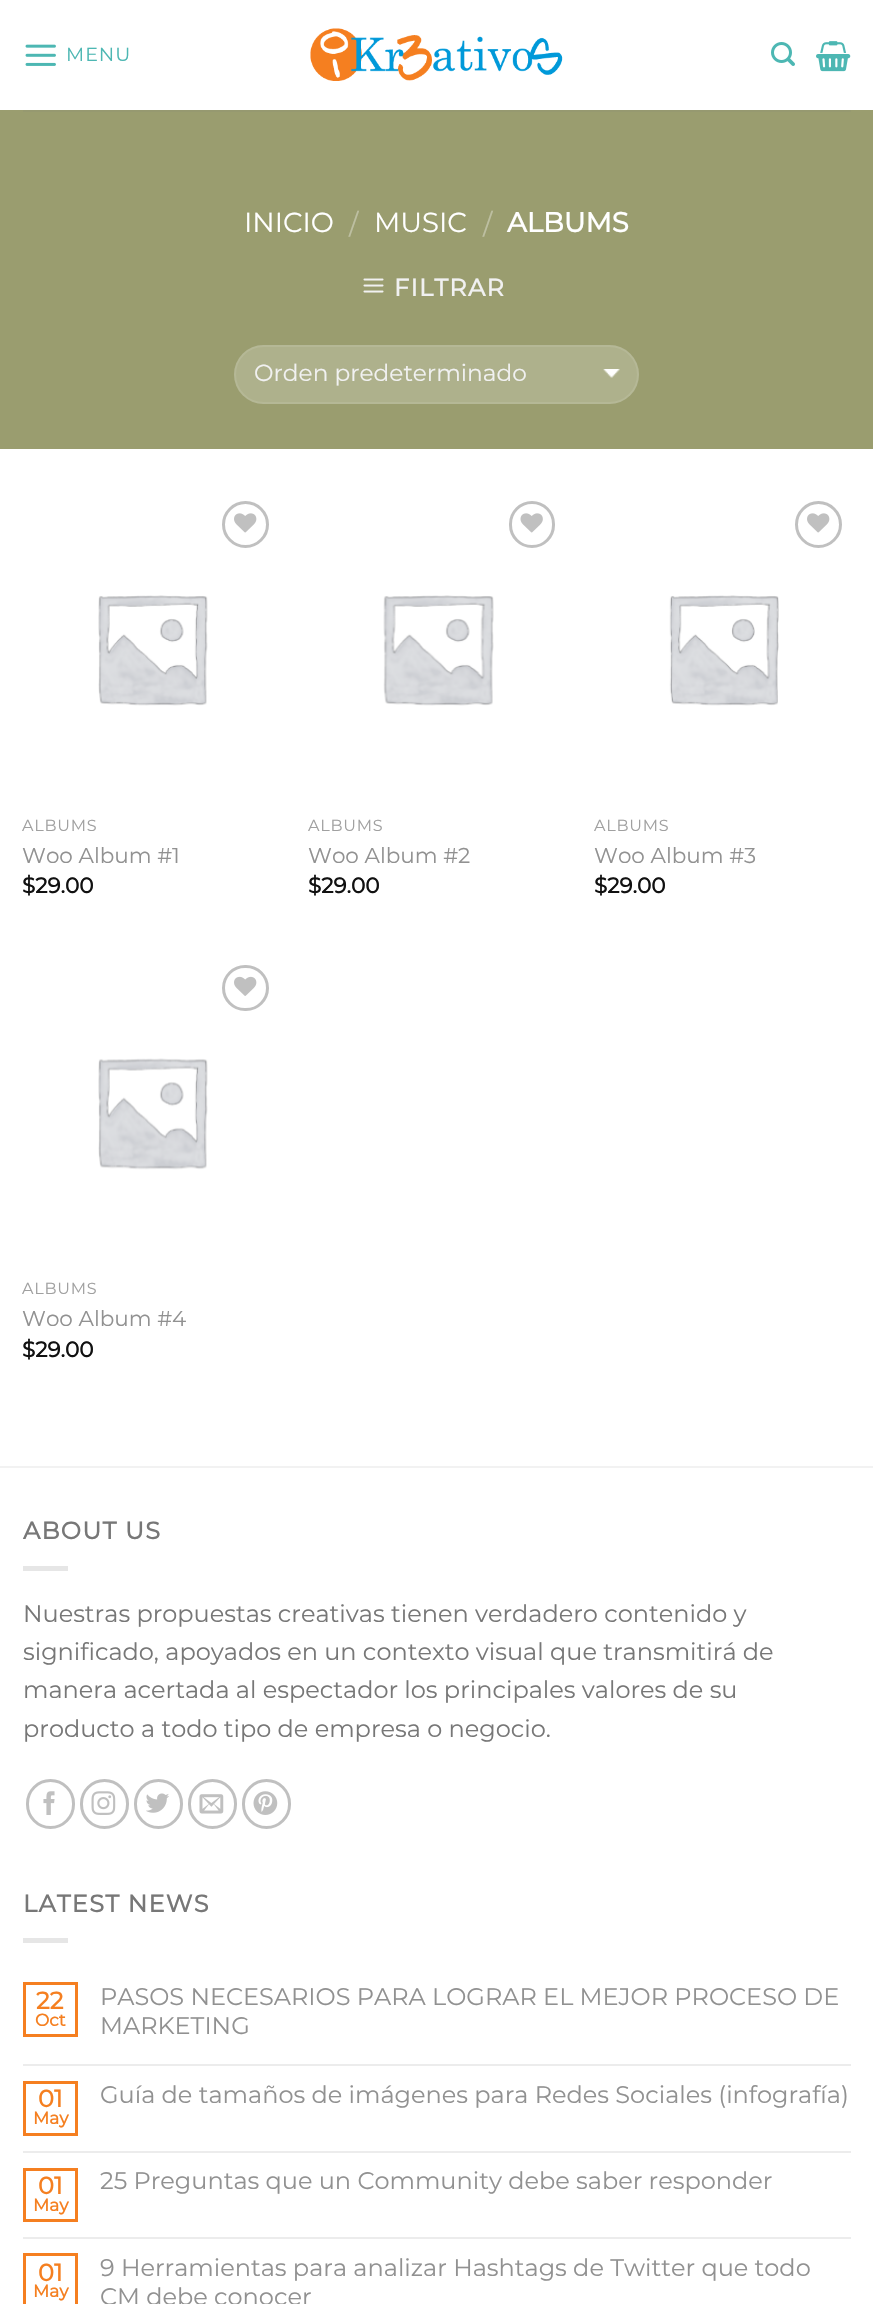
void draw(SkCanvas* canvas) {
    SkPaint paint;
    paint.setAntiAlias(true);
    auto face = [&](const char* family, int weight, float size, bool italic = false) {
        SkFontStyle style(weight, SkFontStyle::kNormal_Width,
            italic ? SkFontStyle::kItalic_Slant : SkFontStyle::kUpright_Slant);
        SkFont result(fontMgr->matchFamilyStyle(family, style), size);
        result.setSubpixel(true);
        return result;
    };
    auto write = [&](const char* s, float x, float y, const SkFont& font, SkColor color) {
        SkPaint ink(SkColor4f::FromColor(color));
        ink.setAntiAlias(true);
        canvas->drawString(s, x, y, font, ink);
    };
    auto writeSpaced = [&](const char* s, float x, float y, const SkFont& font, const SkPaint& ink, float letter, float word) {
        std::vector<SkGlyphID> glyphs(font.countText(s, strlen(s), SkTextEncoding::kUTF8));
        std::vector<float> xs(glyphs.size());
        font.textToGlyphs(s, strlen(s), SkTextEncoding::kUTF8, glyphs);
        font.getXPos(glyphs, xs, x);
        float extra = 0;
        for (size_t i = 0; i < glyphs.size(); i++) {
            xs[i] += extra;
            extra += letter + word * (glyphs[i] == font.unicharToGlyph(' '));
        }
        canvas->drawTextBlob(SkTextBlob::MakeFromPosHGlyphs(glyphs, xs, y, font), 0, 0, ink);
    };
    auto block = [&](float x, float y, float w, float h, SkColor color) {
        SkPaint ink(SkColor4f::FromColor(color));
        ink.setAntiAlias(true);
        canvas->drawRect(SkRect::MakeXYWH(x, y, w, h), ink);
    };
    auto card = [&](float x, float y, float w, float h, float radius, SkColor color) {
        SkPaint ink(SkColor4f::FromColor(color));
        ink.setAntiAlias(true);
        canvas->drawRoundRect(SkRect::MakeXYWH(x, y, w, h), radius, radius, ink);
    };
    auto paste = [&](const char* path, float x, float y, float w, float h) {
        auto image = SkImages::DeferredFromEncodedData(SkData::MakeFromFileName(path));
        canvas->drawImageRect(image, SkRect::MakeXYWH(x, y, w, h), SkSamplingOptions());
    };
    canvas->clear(SK_ColorWHITE);
    paste("pic1.png", 25, 44, 31, 22);
    auto kFont1 = face("Montserrat", 100, 19);
    paint.setColor(SkColorSetRGB(77, 183, 179));
    writeSpaced("MENU", 66, 61, kFont1, paint, 1, 0);
    paste("pic2.png", 310, 28, 253, 53);
    paste("pic3.png", 771, 42, 24, 24);
    paste("pic4.png", 816, 41, 35, 31);
    block(0, 110, 873, 339, SkColorSetRGB(154, 157, 111));
    block(23, 110, 828, 2, SkColorSetRGB(150, 153, 112));
    auto kFont2 = face("Montserrat", 100, 27.5f);
    write("INICIO", 244, 232, kFont2, SK_ColorWHITE);
    write("/", 349, 234, kFont2, SkColorSetRGB(189, 191, 161));
    write("MUSIC", 374, 232, kFont2, SK_ColorWHITE);
    write("/", 483, 234, kFont2, SkColorSetRGB(189, 191, 161));
    auto kFont3 = face("Montserrat", 700, 27.5f);
    write("ALBUMS", 507, 232, kFont3, SK_ColorWHITE);
    paste("pic5.png", 363, 278, 21, 15);
    auto kFont4 = face("Montserrat", 700, 24);
    paint.setColor(SkColorSetRGB(241, 241, 241));
    writeSpaced("FILTRAR", 394, 296, kFont4, paint, 1.25f, 0);
    card(234, 345, 405, 59, 29.5f, SkColorSetRGB(174, 177, 140));
    paste("pic6.png", 603, 369, 17, 9);
    paint.setStyle(SkPaint::kStroke_Style);
    paint.setStrokeWidth(2);
    paint.setColor(SkColorSetARGB(23, 255, 255, 255));
    canvas->drawRoundRect(SkRect::MakeXYWH(235, 346, 403, 57), 28.5f, 28.5f, paint);
    auto kFont5 = face("Montserrat", 100, 23.25f);
    write("Orden predeterminado", 254, 381, kFont5, SkColorSetRGB(241, 241, 241));
    paint.setStrokeWidth(3);
    paint.setColor(SkColorSetRGB(192, 192, 192));
    canvas->drawCircle(245.5f, 524.5f, 22, paint);
    paste("pic7.png", 234, 513, 23, 20);
    paste("pic8.png", 98, 595, 110, 111);
    auto kFont6 = face("Montserrat", 100, 16);
    paint.setStyle(SkPaint::kFill_Style);
    paint.setColor(SkColorSetRGB(160, 160, 160));
    writeSpaced("ALBUMS", 22, 831, kFont6, paint, 0.75f, 0);
    auto kFont7 = face("Montserrat", 100, 21.5f);
    write("Woo Album #1", 22, 863, kFont7, SkColorSetRGB(145, 145, 145));
    auto kFont8 = face("Montserrat", 700, 21.5f);
    write("$29.00", 22, 893, kFont8, SkColorSetRGB(17, 17, 17));
    paint.setStyle(SkPaint::kStroke_Style);
    paint.setColor(SkColorSetRGB(192, 192, 192));
    canvas->drawRoundRect(SkRect::MakeXYWH(510.5f, 502.5f, 43, 44), 21.5f, 21.5f, paint);
    paste("pic9.png", 520, 513, 23, 20);
    paste("pic10.png", 383, 595, 111, 111);
    paint.setStyle(SkPaint::kFill_Style);
    paint.setColor(SkColorSetRGB(160, 160, 160));
    writeSpaced("ALBUMS", 308, 831, kFont6, paint, 0.75f, 0);
    write("Woo Album #2", 308, 863, kFont7, SkColorSetRGB(145, 145, 145));
    write("$29.00", 308, 893, kFont8, SkColorSetRGB(17, 17, 17));
    paint.setStyle(SkPaint::kStroke_Style);
    paint.setColor(SkColorSetRGB(192, 192, 192));
    canvas->drawCircle(818.5f, 524.5f, 22, paint);
    paste("pic7.png", 807, 513, 23, 20);
    paste("pic11.png", 669, 595, 110, 111);
    paint.setStyle(SkPaint::kFill_Style);
    paint.setColor(SkColorSetRGB(160, 160, 160));
    writeSpaced("ALBUMS", 594, 831, kFont6, paint, 0.75f, 0);
    write("Woo Album #3", 594, 863, kFont7, SkColorSetRGB(145, 145, 145));
    write("$29.00", 594, 893, kFont8, SkColorSetRGB(17, 17, 17));
    paint.setStyle(SkPaint::kStroke_Style);
    paint.setColor(SkColorSetRGB(192, 192, 192));
    canvas->drawRoundRect(SkRect::MakeXYWH(223.5f, 966.5f, 44, 43), 21.5f, 21.5f, paint);
    paste("pic12.png", 234, 976, 23, 20);
    paste("pic13.png", 98, 1058, 110, 112);
    paint.setStyle(SkPaint::kFill_Style);
    paint.setColor(SkColorSetRGB(160, 160, 160));
    writeSpaced("ALBUMS", 22, 1294, kFont6, paint, 0.75f, 0);
    write("Woo Album #4", 22, 1326, kFont7, SkColorSetRGB(145, 145, 145));
    write("$29.00", 22, 1357, kFont8, SkColorSetRGB(17, 17, 17));
    block(0, 1466, 873, 2, SkColorSetRGB(242, 242, 242));
    paint.setColor(SkColorSetRGB(119, 119, 119));
    writeSpaced("ABOUT US", 23, 1539, kFont4, paint, 1.25f, 0);
    block(23, 1566, 45, 5, SkColorSetRGB(230, 230, 230));
    auto kFont9 = face("Montserrat", 100, 24);
    write("Nuestras propuestas creativas tienen verdadero contenido y", 23, 1622, kFont9, SkColorSetRGB(119, 119, 119));
    write("significado, apoyados en un contexto visual que transmitirá de", 23, 1660, kFont9, SkColorSetRGB(119, 119, 119));
    write("manera acertada al espectador los principales valores de su", 23, 1698, kFont9, SkColorSetRGB(119, 119, 119));
    write("producto a todo tipo de empresa o negocio.", 23, 1737, kFont9, SkColorSetRGB(119, 119, 119));
    paint.setStyle(SkPaint::kStroke_Style);
    paint.setColor(SkColorSetRGB(192, 192, 192));
    canvas->drawRoundRect(SkRect::MakeXYWH(27.5f, 1780.5f, 46, 47), 23, 23, paint);
    paste("pic14.png", 43, 1791, 12, 24);
    canvas->drawRoundRect(SkRect::MakeXYWH(81.5f, 1780.5f, 46, 47), 23, 23, paint);
    paste("pic15.png", 91, 1791, 25, 24);
    canvas->drawRoundRect(SkRect::MakeXYWH(135.5f, 1780.5f, 46, 47), 23, 23, paint);
    paste("pic16.png", 146, 1793, 23, 20);
    canvas->drawRoundRect(SkRect::MakeXYWH(189.5f, 1780.5f, 46, 47), 23, 23, paint);
    paste("pic17.png", 199, 1794, 25, 20);
    canvas->drawRoundRect(SkRect::MakeXYWH(243.5f, 1780.5f, 46, 47), 23, 23, paint);
    paste("pic18.png", 253, 1791, 25, 24);
    paint.setStyle(SkPaint::kFill_Style);
    paint.setColor(SkColorSetRGB(119, 119, 119));
    writeSpaced("LATEST NEWS", 23, 1912, kFont4, paint, 1.25f, 0);
    block(23, 1938, 45, 5, SkColorSetRGB(230, 230, 230));
    paint.setStyle(SkPaint::kStroke_Style);
    paint.setColor(SkColorSetRGB(245, 127, 32));
    canvas->drawRect(SkRect::MakeXYWH(24.5f, 1983.5f, 52, 52), paint);
    write("22", 36, 2009, kFont4, SkColorSetRGB(245, 127, 32));
    auto kFont10 = face("Montserrat", 700, 17);
    write("Oct", 35, 2026, kFont10, SkColorSetRGB(245, 127, 32));
    write("PASOS NECESARIOS PARA LOGRAR EL MEJOR PROCESO DE", 100, 2005, kFont9, SkColorSetRGB(145, 145, 145));
    write("MARKETING", 100, 2034, kFont9, SkColorSetRGB(145, 145, 145));
    block(23, 2064, 828, 2, SkColorSetRGB(236, 236, 236));
    canvas->drawRect(SkRect::MakeXYWH(24.5f, 2082.5f, 52, 52), paint);
    write("01", 38, 2107, kFont4, SkColorSetRGB(245, 127, 32));
    write("May", 33, 2124, kFont10, SkColorSetRGB(245, 127, 32));
    write("Guía de tamaños de imágenes para Redes Sociales (infografía)", 100, 2103, kFont9, SkColorSetRGB(145, 145, 145));
    block(23, 2151, 828, 2, SkColorSetRGB(236, 236, 236));
    canvas->drawRect(SkRect::MakeXYWH(24.5f, 2169.5f, 52, 51), paint);
    write("01", 38, 2194, kFont4, SkColorSetRGB(245, 127, 32));
    write("May", 33, 2211, kFont10, SkColorSetRGB(245, 127, 32));
    write("25 Preguntas que un Community debe saber responder", 100, 2189, kFont9, SkColorSetRGB(145, 145, 145));
    block(23, 2237, 828, 2, SkColorSetRGB(236, 236, 236));
    canvas->drawRect(SkRect::MakeXYWH(24.5f, 2254.5f, 52, 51), paint);
    write("01", 38, 2281, kFont4, SkColorSetRGB(245, 127, 32));
    write("May", 33, 2297, kFont10, SkColorSetRGB(245, 127, 32));
    write("9 Herramientas para analizar Hashtags de Twitter que todo", 100, 2276, kFont9, SkColorSetRGB(145, 145, 145));
    write("CM debe conocer", 100, 2305, kFont9, SkColorSetRGB(145, 145, 145));
}
